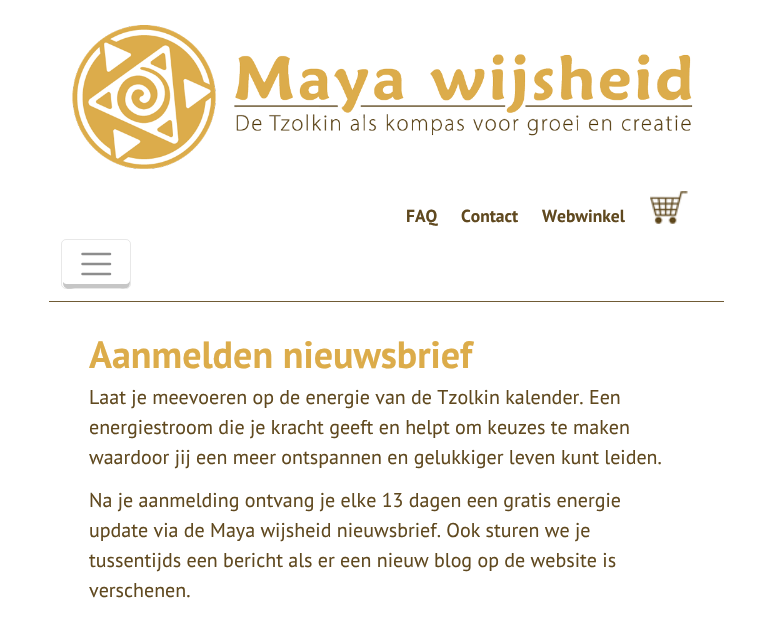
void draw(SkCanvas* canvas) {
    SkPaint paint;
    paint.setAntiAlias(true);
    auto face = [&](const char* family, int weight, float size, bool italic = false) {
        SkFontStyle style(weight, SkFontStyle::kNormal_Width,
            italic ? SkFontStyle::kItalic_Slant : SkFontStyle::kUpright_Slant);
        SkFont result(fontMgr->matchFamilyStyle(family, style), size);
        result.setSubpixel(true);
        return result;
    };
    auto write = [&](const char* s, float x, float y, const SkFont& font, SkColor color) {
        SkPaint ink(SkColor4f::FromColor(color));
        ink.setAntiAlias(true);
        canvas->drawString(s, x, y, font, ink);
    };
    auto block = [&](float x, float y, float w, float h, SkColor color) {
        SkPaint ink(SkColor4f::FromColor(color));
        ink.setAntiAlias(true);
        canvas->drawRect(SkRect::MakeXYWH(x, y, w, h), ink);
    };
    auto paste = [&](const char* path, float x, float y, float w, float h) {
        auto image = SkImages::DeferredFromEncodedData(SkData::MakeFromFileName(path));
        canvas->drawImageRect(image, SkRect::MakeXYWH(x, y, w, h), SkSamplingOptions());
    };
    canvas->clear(SK_ColorWHITE);
    paste("pic1.png", 72, 25, 621, 144);
    auto kFont1 = face("PT Sans", 700, 17.5f);
    write("FAQ", 406, 222, kFont1, SkColorSetRGB(96, 73, 31));
    write("Contact", 461, 222, kFont1, SkColorSetRGB(96, 73, 31));
    write("Webwinkel", 542, 222, kFont1, SkColorSetRGB(96, 73, 31));
    paste("pic2.png", 650, 191, 38, 33);
    block(49, 301, 675, 1, SkColorSetRGB(112, 91, 53));
    paint.setColor(SkColorSetRGB(198, 198, 198));
    canvas->drawPath(SkPathBuilder().moveTo(63, 282).cubicTo(63, 291, 70, 288, 77, 288).lineTo(116, 288).cubicTo(127, 288, 130, 290, 130, 280).cubicTo(130, 282, 128, 284, 126, 284).lineTo(66, 284).cubicTo(65, 284, 64, 283, 63, 282).close().detach(), paint);
    paint.setStyle(SkPaint::kStroke_Style);
    paint.setStrokeWidth(1);
    paint.setColor(SkColorSetARGB(26, 26, 26, 26));
    canvas->drawRoundRect(SkRect::MakeXYWH(61.5f, 239.5f, 69, 49), 4.5f, 4.5f, paint);
    paint.setStrokeWidth(2.5f);
    paint.setStrokeCap(SkPaint::kRound_Cap);
    paint.setColor(SkColorSetRGB(141, 141, 141));
    canvas->drawPath(SkPathBuilder().moveTo(82.5f, 254).lineTo(110, 254).moveTo(82.5f, 264).lineTo(110, 264).moveTo(82.5f, 274).lineTo(110, 274).detach(), paint);
    auto kFont2 = face("PT Sans", 700, 38);
    write("Aanmelden nieuwsbrief", 89, 368, kFont2, SkColorSetRGB(220, 172, 74));
    auto kFont3 = face("PT Sans", 400, 20);
    write("Laat je meevoeren op de energie van de Tzolkin kalender. Een", 89, 404, kFont3, SkColorSetRGB(96, 73, 31));
    write("energiestroom die je kracht geeft en helpt om keuzes te maken", 89, 434, kFont3, SkColorSetRGB(96, 73, 31));
    write("waardoor jij een meer ontspannen en gelukkiger leven kunt leiden.", 89, 464, kFont3, SkColorSetRGB(96, 73, 31));
    write("Na je aanmelding ontvang je elke 13 dagen een gratis energie", 89, 507, kFont3, SkColorSetRGB(96, 73, 31));
    write("update via de Maya wijsheid nieuwsbrief. Ook sturen we je", 89, 537, kFont3, SkColorSetRGB(96, 73, 31));
    write("tussentijds een bericht als er een nieuw blog op de website is", 89, 567, kFont3, SkColorSetRGB(96, 73, 31));
    write("verschenen.", 89, 597, kFont3, SkColorSetRGB(96, 73, 31));
}
